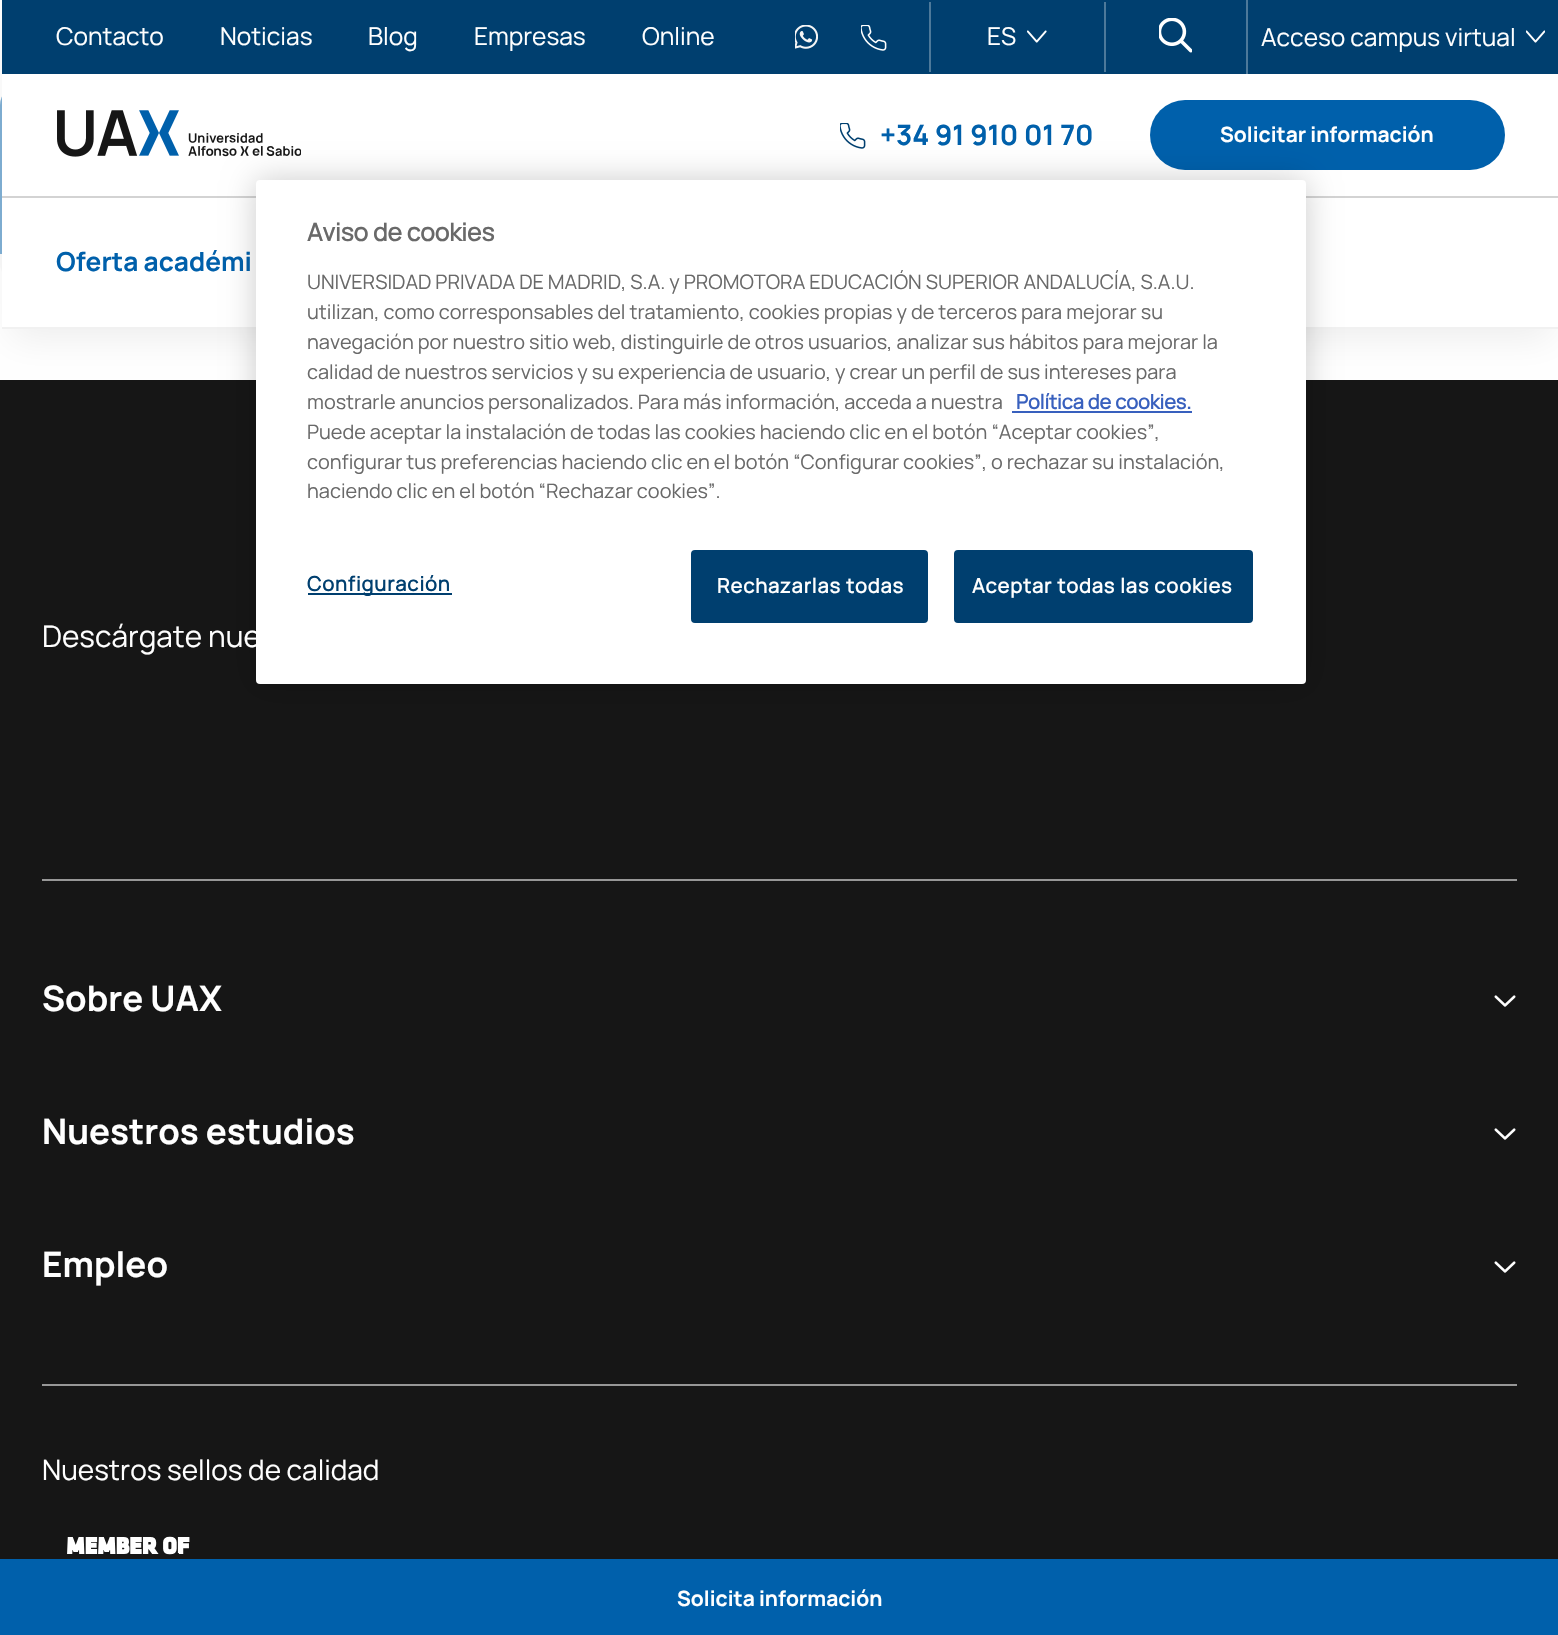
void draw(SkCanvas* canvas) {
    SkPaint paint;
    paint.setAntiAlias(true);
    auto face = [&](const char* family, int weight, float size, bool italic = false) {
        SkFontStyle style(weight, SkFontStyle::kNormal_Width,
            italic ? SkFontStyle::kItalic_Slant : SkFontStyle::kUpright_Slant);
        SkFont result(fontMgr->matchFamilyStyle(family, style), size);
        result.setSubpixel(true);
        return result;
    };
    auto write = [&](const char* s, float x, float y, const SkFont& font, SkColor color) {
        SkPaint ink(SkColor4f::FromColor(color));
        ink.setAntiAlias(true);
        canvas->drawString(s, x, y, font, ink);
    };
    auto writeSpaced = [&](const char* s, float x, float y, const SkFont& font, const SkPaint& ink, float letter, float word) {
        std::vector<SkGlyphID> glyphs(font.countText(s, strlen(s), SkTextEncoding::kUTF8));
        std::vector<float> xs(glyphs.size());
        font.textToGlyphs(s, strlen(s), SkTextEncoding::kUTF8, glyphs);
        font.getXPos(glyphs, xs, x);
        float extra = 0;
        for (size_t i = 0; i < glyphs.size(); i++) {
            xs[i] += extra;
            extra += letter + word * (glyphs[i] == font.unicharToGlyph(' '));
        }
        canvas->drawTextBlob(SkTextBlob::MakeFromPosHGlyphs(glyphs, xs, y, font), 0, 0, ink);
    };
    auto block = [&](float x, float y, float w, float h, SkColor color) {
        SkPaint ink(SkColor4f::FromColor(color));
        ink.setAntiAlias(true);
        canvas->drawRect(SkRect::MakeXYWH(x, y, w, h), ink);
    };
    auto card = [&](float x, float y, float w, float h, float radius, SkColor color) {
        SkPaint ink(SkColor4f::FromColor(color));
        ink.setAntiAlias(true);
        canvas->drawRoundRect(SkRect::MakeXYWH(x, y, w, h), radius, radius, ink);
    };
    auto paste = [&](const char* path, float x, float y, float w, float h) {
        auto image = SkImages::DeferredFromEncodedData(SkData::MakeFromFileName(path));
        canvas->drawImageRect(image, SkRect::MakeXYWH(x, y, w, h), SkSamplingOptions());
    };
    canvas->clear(SK_ColorWHITE);
    card(0, 86, 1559, 196, 19, SkColorSetRGB(250, 250, 250));
    paint.setColor(SkColorSetRGB(128, 176, 213));
    canvas->drawPath(SkPathBuilder().moveTo(19, 86).lineTo(1540, 86).cubicTo(1550.5f, 86, 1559, 94.5f, 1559, 105).lineTo(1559, 254).lineTo(0, 254).lineTo(0, 105).cubicTo(0, 94.5f, 8.5f, 86, 19, 86).close().detach(), paint);
    block(0, 380, 1558, 1179, SkColorSetRGB(22, 22, 22));
    paint.setColor(SkColorSetARGB(18, 0, 0, 0));
    paint.setMaskFilter(SkMaskFilter::MakeBlur(kNormal_SkBlurStyle, 17.5f));
    canvas->drawRect(SkRect::MakeXYWH(11, 26, 1541, 312), paint);
    paint.setMaskFilter(nullptr);
    block(2, 0, 1556, 74, SkColorSetRGB(0, 63, 111));
    auto kFont1 = face("Manrope", 200, 24.5f);
    write("Contacto", 56, 45, kFont1, SK_ColorWHITE);
    write("Noticias", 220, 45, kFont1, SK_ColorWHITE);
    write("Blog", 368, 45, kFont1, SK_ColorWHITE);
    write("Empresas", 474, 45, kFont1, SK_ColorWHITE);
    write("Online", 642, 45, kFont1, SK_ColorWHITE);
    paste("pic1.png", 795, 25, 23, 24);
    paste("pic2.png", 861, 25, 26, 26);
    block(1104, 2, 2, 70, SkColorSetRGB(77, 121, 154));
    block(929, 2, 2, 70, SkColorSetRGB(77, 121, 154));
    write("ES", 987, 45, kFont1, SK_ColorWHITE);
    paste("pic3.png", 1027, 30, 20, 13);
    paste("pic4.png", 1159, 18, 33, 35);
    block(1246, 0, 2, 74, SkColorSetRGB(77, 121, 154));
    write("Acceso campus virtual", 1261, 46, kFont1, SK_ColorWHITE);
    paste("pic5.png", 1526, 30, 19, 13);
    block(2, 74, 1556, 253, SK_ColorWHITE);
    block(2, 196, 1556, 2, SkColorSetRGB(211, 211, 211));
    paste("pic6.png", 840, 123, 26, 26);
    auto kFont2 = face("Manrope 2", 200, 28);
    write("+34 91 910 01 70", 880, 145, kFont2, SkColorSetRGB(0, 96, 171));
    card(1150, 100, 355, 70, 35, SkColorSetRGB(0, 96, 171));
    auto kFont3 = face("Manrope 2", 200, 21);
    write("Solicitar información", 1220, 142, kFont3, SK_ColorWHITE);
    paste("pic7.png", 57, 110, 244, 47);
    auto kFont4 = face("Manrope 2", 200, 26.25f);
    write("Oferta académi", 56, 271, kFont4, SkColorSetRGB(0, 96, 171));
    block(2, 327, 1556, 2, SkColorSetRGB(241, 241, 241));
    paint.setColor(SkColorSetARGB(51, 0, 0, 0));
    paint.setMaskFilter(SkMaskFilter::MakeBlur(kNormal_SkBlurStyle, 16));
    canvas->drawRoundRect(SkRect::MakeXYWH(256, 180, 1050, 504), 4, 4, paint);
    paint.setMaskFilter(nullptr);
    card(256, 180, 1050, 504, 4, SK_ColorWHITE);
    auto kFont5 = face("Manrope", 700, 24.5f);
    write("Aviso de cookies", 307, 241, kFont5, SkColorSetRGB(105, 105, 105));
    auto kFont6 = face("Manrope", 200, 19.9f);
    write("UNIVERSIDAD PRIVADA DE MADRID, S.A. y PROMOTORA EDUCACIÓN SUPERIOR ANDALUCÍA, S.A.U.", 307, 289, kFont6, SkColorSetRGB(105, 105, 105));
    write("utilizan, como corresponsables del tratamiento, cookies propias y de terceros para mejorar su", 307, 319, kFont6, SkColorSetRGB(105, 105, 105));
    write("navegación por nuestro sitio web, distinguirle de otros usuarios, analizar sus hábitos para mejorar la", 307, 349, kFont6, SkColorSetRGB(105, 105, 105));
    write("calidad de nuestros servicios y su experiencia de usuario, y crear un perfil de sus intereses para", 307, 379, kFont6, SkColorSetRGB(105, 105, 105));
    write("mostrarle anuncios personalizados. Para más información, acceda a nuestra", 307, 409, kFont6, SkColorSetRGB(105, 105, 105));
    auto kFont7 = face("Manrope", 700, 19.9f);
    write("Política de cookies.", 1016, 409, kFont7, SkColorSetRGB(56, 96, 190));
    block(1012, 411, 180, 2, SkColorSetRGB(56, 96, 190));
    write("Puede aceptar la instalación de todas las cookies haciendo clic en el botón “Aceptar cookies”,", 307, 439, kFont6, SkColorSetRGB(105, 105, 105));
    write("configurar tus preferencias haciendo clic en el botón “Configurar cookies”, o rechazar su instalación,", 307, 469, kFont6, SkColorSetRGB(105, 105, 105));
    write("haciendo clic en el botón “Rechazar cookies”.", 307, 498, kFont6, SkColorSetRGB(105, 105, 105));
    block(308, 593, 144, 2, SkColorSetRGB(0, 63, 111));
    paint.setColor(SkColorSetRGB(0, 63, 111));
    writeSpaced("Configuración", 307, 591, kFont7, paint, 1, 0);
    canvas->drawRoundRect(SkRect::MakeXYWH(692, 551, 235, 71), 3, 3, paint);
    paint.setStyle(SkPaint::kStroke_Style);
    paint.setStrokeWidth(2);
    canvas->drawRoundRect(SkRect::MakeXYWH(692, 551, 235, 71), 3, 3, paint);
    paint.setStyle(SkPaint::kFill_Style);
    paint.setColor(SK_ColorWHITE);
    writeSpaced("Rechazarlas todas", 717, 593, kFont7, paint, 1, 0);
    paint.setColor(SkColorSetRGB(0, 63, 111));
    canvas->drawRoundRect(SkRect::MakeXYWH(955, 551, 297, 71), 3, 3, paint);
    paint.setStyle(SkPaint::kStroke_Style);
    canvas->drawRoundRect(SkRect::MakeXYWH(955, 551, 297, 71), 3, 3, paint);
    paint.setStyle(SkPaint::kFill_Style);
    paint.setColor(SK_ColorWHITE);
    writeSpaced("Aceptar todas las cookies", 972, 593, kFont7, paint, 1, 0);
    block(42, 879, 1475, 2, SkColorSetRGB(151, 151, 151));
    auto kFont8 = face("Manrope", 200, 29.75f);
    write("Descárgate nue", 42, 647, kFont8, SK_ColorWHITE);
    auto kFont9 = face("Manrope 2", 200, 35);
    write("Sobre UAX", 42, 1011, kFont9, SK_ColorWHITE);
    paste("pic8.png", 1494, 995, 22, 12);
    write("Nuestros estudios", 42, 1144, kFont9, SK_ColorWHITE);
    paste("pic8.png", 1494, 1128, 22, 12);
    write("Empleo", 42, 1277, kFont9, SK_ColorWHITE);
    paste("pic8.png", 1494, 1261, 22, 12);
    block(42, 1384, 1475, 2, SkColorSetRGB(151, 151, 151));
    auto kFont10 = face("Manrope", 200, 28);
    write("Nuestros sellos de calidad", 42, 1480, kFont10, SK_ColorWHITE);
    paste("pic9.png", 66, 1536, 236, 23);
    block(0, 1559, 1558, 76, SkColorSetRGB(0, 96, 171));
    write("Solicita información", 677, 1606, kFont3, SK_ColorWHITE);
}
